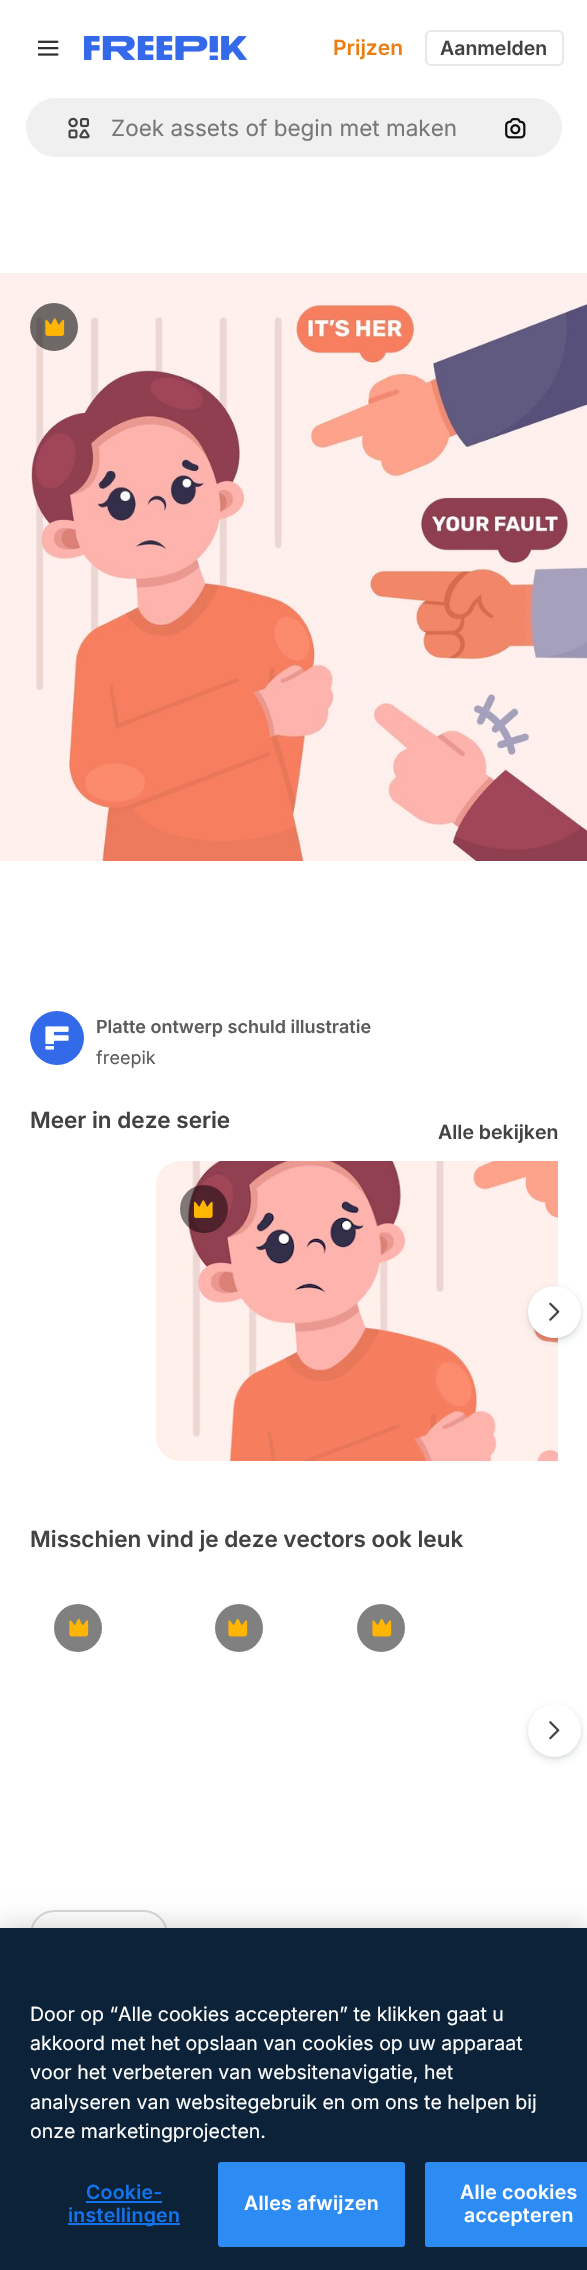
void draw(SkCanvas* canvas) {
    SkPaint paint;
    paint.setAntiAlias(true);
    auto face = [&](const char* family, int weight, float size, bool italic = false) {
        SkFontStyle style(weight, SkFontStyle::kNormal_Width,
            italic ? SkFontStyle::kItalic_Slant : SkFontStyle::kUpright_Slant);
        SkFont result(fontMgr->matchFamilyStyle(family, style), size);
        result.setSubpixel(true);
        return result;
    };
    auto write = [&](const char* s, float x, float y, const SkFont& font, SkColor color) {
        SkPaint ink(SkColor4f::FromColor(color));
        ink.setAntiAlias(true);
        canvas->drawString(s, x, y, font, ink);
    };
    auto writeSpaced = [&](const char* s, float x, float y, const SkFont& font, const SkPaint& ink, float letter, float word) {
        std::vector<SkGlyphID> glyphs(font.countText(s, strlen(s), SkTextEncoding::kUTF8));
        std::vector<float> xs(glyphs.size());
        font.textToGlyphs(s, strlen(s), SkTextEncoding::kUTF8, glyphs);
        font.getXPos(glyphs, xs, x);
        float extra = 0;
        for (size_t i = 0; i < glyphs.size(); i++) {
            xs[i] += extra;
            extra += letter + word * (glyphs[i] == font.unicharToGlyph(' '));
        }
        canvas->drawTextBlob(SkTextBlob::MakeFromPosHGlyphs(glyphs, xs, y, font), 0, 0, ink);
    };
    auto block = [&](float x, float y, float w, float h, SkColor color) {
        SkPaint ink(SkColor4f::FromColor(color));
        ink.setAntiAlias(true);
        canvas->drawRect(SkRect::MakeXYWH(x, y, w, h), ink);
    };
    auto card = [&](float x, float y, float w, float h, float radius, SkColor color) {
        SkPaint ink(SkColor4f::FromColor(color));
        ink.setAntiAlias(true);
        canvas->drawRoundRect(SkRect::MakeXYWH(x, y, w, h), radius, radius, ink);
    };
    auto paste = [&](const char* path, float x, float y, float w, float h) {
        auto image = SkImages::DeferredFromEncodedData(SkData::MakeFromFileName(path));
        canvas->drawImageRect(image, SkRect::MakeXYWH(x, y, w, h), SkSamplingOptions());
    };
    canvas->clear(SK_ColorWHITE);
    paste("pic1.png", 38, 40, 21, 16);
    paste("pic2.png", 84, 36, 163, 24);
    auto kFont1 = face("Inter", 600, 21);
    write("Prijzen", 333, 55, kFont1, SkColorSetRGB(234, 126, 17));
    paint.setStyle(SkPaint::kStroke_Style);
    paint.setStrokeWidth(2);
    paint.setColor(SkColorSetRGB(231, 231, 231));
    canvas->drawRoundRect(SkRect::MakeXYWH(426, 31, 137, 34), 5, 5, paint);
    auto kFont2 = face("Inter", 600, 19.5f);
    write("Aanmelden", 440, 55, kFont2, SkColorSetRGB(66, 66, 66));
    paint.setStyle(SkPaint::kFill_Style);
    paint.setColor(SkColorSetRGB(240, 240, 240));
    canvas->drawRoundRect(SkRect::MakeXYWH(25, 97, 538, 61), 30.5f, 30.5f, paint);
    paint.setStyle(SkPaint::kStroke_Style);
    paint.setColor(SK_ColorWHITE);
    canvas->drawRoundRect(SkRect::MakeXYWH(25, 97, 538, 61), 30.5f, 30.5f, paint);
    paste("pic3.png", 68, 117, 22, 22);
    auto kFont3 = face("Inter", 400, 22.5f);
    write("Zoek assets of begin met maken", 111, 136, kFont3, SkColorSetRGB(119, 119, 119));
    paste("pic4.png", 505, 118, 21, 21);
    paste("pic5.png", 0, 273, 587, 588);
    paint.setStyle(SkPaint::kFill_Style);
    paint.setColor(SkColorSetARGB(153, 13, 13, 13));
    canvas->drawCircle(54, 327, 24, paint);
    paste("pic6.png", 45, 318, 20, 18);
    paste("pic7.png", 30, 1011, 54, 54);
    auto kFont4 = face("Inter", 600, 18);
    write("Platte ontwerp schuld illustratie", 96, 1033, kFont4, SkColorSetRGB(92, 92, 92));
    auto kFont5 = face("Inter", 400, 18);
    write("freepik", 96, 1064, kFont5, SkColorSetRGB(92, 92, 92));
    auto kFont6 = face("Inter", 600, 22.5f);
    write("Meer in deze serie", 30, 1128, kFont6, SkColorSetRGB(66, 66, 66));
    write("Alle bekijken", 438, 1139, kFont2, SkColorSetRGB(66, 66, 66));
    paste("pic8.png", 156, 1161, 402, 300);
    paint.setColor(SkColorSetARGB(128, 0, 0, 0));
    canvas->drawCircle(204, 1209, 24, paint);
    paste("pic9.png", 194, 1200, 19, 18);
    paint.setColor(SkColorSetARGB(38, 55, 73, 87));
    paint.setMaskFilter(SkMaskFilter::MakeBlur(kNormal_SkBlurStyle, 4));
    canvas->drawRoundRect(SkRect::MakeXYWH(528, 1289, 53, 52), 26, 26, paint);
    paint.setMaskFilter(nullptr);
    paint.setColor(SkColorSetARGB(26, 55, 73, 87));
    paint.setMaskFilter(SkMaskFilter::MakeBlur(kNormal_SkBlurStyle, 1.5f));
    canvas->drawRoundRect(SkRect::MakeXYWH(528, 1287, 53, 53), 26.5f, 26.5f, paint);
    paint.setMaskFilter(nullptr);
    card(528, 1286, 53, 52, 26, SK_ColorWHITE);
    paste("pic10.png", 549, 1302, 11, 19);
    write("Misschien vind je deze vectors ook leuk", 30, 1547, kFont6, SkColorSetRGB(66, 66, 66));
    paint.setColor(SkColorSetRGB(128, 128, 128));
    canvas->drawCircle(78, 1628, 24, paint);
    paste("pic11.png", 69, 1619, 20, 18);
    canvas->drawCircle(239, 1628, 24, paint);
    paste("pic11.png", 228, 1619, 20, 18);
    canvas->drawCircle(381, 1628, 24, paint);
    paste("pic11.png", 372, 1619, 20, 18);
    paint.setColor(SkColorSetARGB(38, 55, 73, 87));
    paint.setMaskFilter(SkMaskFilter::MakeBlur(kNormal_SkBlurStyle, 4));
    canvas->drawRoundRect(SkRect::MakeXYWH(528, 1707, 53, 53), 26.5f, 26.5f, paint);
    paint.setMaskFilter(nullptr);
    paint.setColor(SkColorSetARGB(26, 55, 73, 87));
    paint.setMaskFilter(SkMaskFilter::MakeBlur(kNormal_SkBlurStyle, 1.5f));
    canvas->drawRoundRect(SkRect::MakeXYWH(528, 1706, 53, 52), 26, 26, paint);
    paint.setMaskFilter(nullptr);
    paint.setColor(SK_ColorWHITE);
    canvas->drawCircle(554.5f, 1730.5f, 26.5f, paint);
    paste("pic12.png", 549, 1721, 11, 19);
    paint.setStyle(SkPaint::kStroke_Style);
    paint.setColor(SkColorSetRGB(216, 216, 216));
    canvas->drawRoundRect(SkRect::MakeXYWH(31, 1911, 136, 47), 23.5f, 23.5f, paint);
    paint.setStyle(SkPaint::kFill_Style);
    paint.setColor(SkColorSetARGB(51, 0, 0, 0));
    paint.setMaskFilter(SkMaskFilter::MakeBlur(kNormal_SkBlurStyle, 13.5f));
    canvas->drawRect(SkRect::MakeXYWH(0, 1928, 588, 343), paint);
    paint.setMaskFilter(nullptr);
    block(0, 1928, 587, 342, SkColorSetRGB(11, 34, 57));
    auto kFont7 = face("Inter", 400, 19.5f);
    write("Door op “Alle cookies accepteren” te klikken gaat u", 30, 2021, kFont7, SK_ColorWHITE);
    write("akkoord met het opslaan van cookies op uw apparaat", 30, 2050, kFont7, SK_ColorWHITE);
    write("voor het verbeteren van websitenavigatie, het", 30, 2079, kFont7, SK_ColorWHITE);
    write("analyseren van websitegebruik en om ons te helpen bij", 30, 2109, kFont7, SK_ColorWHITE);
    write("onze marketingprojecten.", 30, 2138, kFont7, SK_ColorWHITE);
    paint.setColor(SkColorSetRGB(18, 115, 235));
    writeSpaced("Cookie-", 86, 2199, kFont2, paint, 0.25f, 0);
    block(86, 2201, 76, 2, SkColorSetRGB(18, 115, 235));
    block(68, 2223, 112, 2, SkColorSetRGB(18, 115, 235));
    writeSpaced("instellingen", 68, 2222, kFont2, paint, 0.25f, 0);
    paint.setColor(SkColorSetRGB(44, 140, 244));
    canvas->drawRoundRect(SkRect::MakeXYWH(219, 2163, 185, 83), 2, 2, paint);
    paint.setStyle(SkPaint::kStroke_Style);
    canvas->drawRoundRect(SkRect::MakeXYWH(219, 2163, 185, 83), 2, 2, paint);
    paint.setStyle(SkPaint::kFill_Style);
    paint.setColor(SK_ColorWHITE);
    writeSpaced("Alles afwijzen", 244, 2210, kFont2, paint, 0.25f, 0);
    paint.setColor(SkColorSetRGB(44, 140, 244));
    canvas->drawPath(SkPathBuilder().moveTo(428, 2162).lineTo(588, 2162).lineTo(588, 2247).lineTo(428, 2247).cubicTo(426.5f, 2247, 425, 2245.5f, 425, 2244).lineTo(425, 2165).cubicTo(425, 2163.5f, 426.5f, 2162, 428, 2162).close().detach(), paint);
    paint.setStyle(SkPaint::kStroke_Style);
    canvas->drawRoundRect(SkRect::MakeXYWH(426, 2163, 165, 83), 2, 2, paint);
    paint.setStyle(SkPaint::kFill_Style);
    paint.setColor(SK_ColorWHITE);
    writeSpaced("Alle cookies", 460, 2199, kFont2, paint, 0.25f, 0);
    writeSpaced("accepteren", 464, 2222, kFont2, paint, 0.25f, 0);
}
